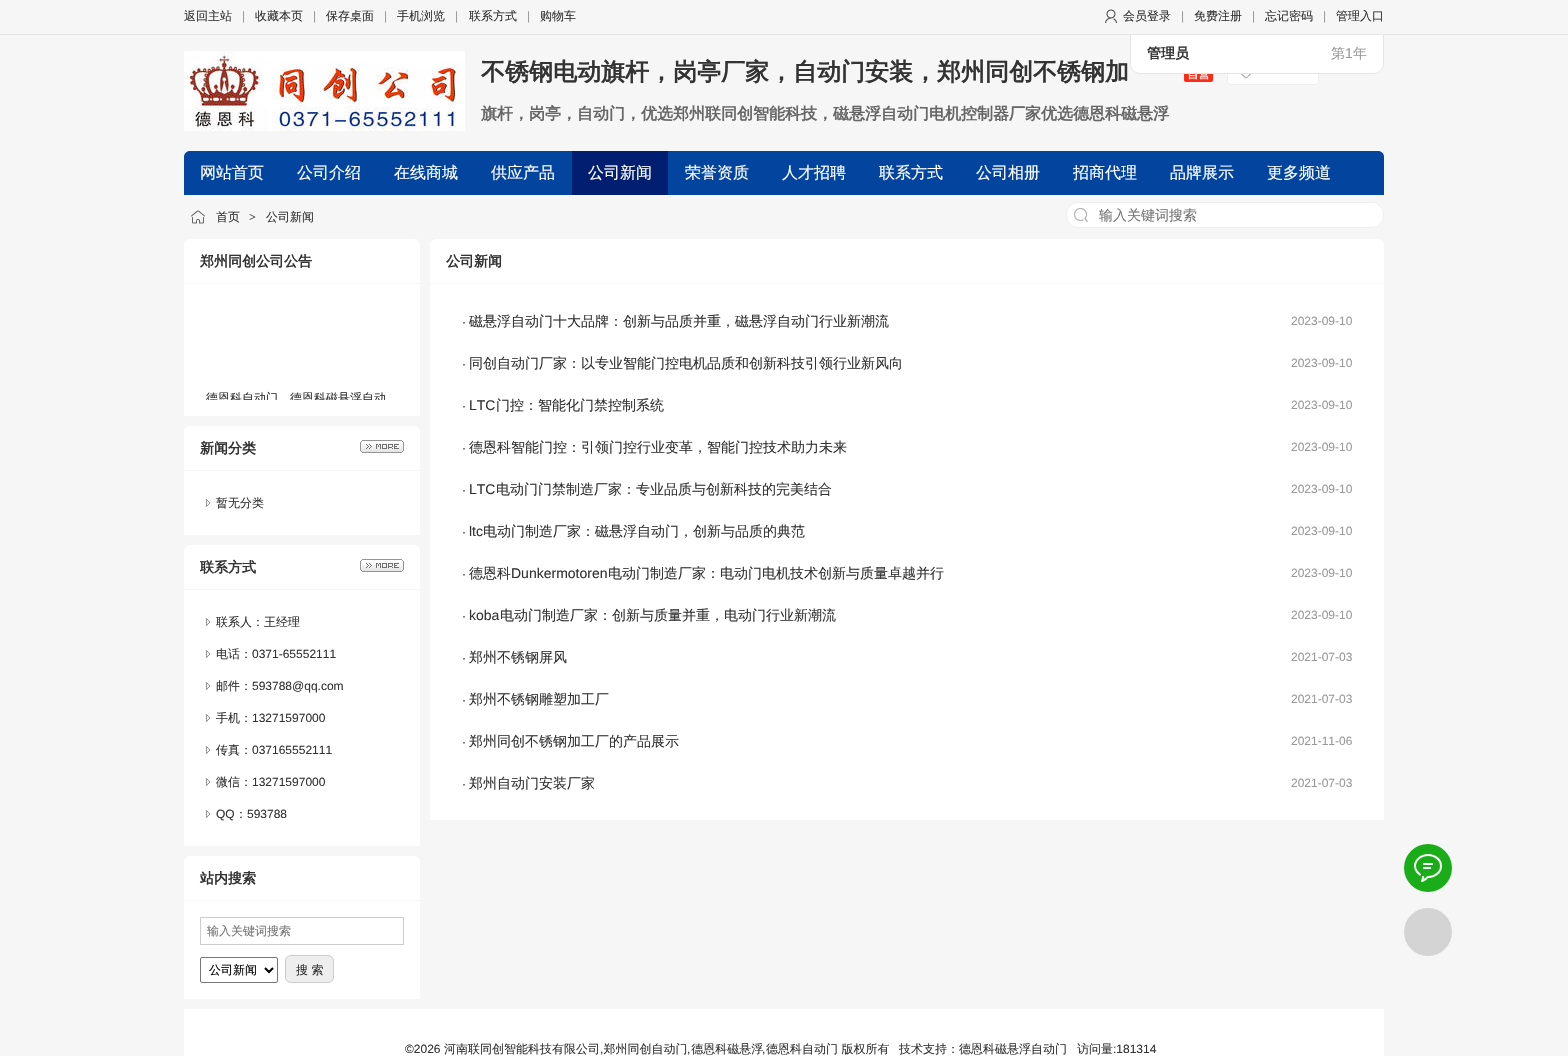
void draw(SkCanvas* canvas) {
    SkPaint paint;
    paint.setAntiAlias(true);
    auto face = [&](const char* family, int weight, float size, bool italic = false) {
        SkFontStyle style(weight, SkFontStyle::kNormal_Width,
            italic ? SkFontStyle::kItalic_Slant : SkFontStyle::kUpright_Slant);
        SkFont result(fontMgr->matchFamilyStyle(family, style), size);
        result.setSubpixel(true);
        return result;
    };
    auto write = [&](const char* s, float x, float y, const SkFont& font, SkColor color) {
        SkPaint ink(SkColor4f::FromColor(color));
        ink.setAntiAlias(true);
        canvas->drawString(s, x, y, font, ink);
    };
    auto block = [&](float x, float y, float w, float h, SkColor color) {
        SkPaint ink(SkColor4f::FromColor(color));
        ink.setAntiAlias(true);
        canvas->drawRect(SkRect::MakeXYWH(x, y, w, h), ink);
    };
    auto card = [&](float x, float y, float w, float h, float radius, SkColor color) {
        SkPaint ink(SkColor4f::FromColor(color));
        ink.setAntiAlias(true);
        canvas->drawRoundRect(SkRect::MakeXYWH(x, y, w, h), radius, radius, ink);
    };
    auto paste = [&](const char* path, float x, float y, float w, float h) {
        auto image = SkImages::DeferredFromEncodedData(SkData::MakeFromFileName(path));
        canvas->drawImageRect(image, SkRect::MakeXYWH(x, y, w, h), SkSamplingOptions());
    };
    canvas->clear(SkColorSetRGB(246, 246, 246));
    block(0, 34, 1568, 1, SkColorSetRGB(229, 229, 229));
    auto kFont1 = face("WenQuanYi Zen Hei", 500, 12);
    write("返回主站", 184, 20, kFont1, SkColorSetRGB(51, 51, 51));
    auto kFont2 = face("Liberation Sans", 400, 12);
    write("|", 242, 20, kFont2, SkColorSetRGB(153, 153, 153));
    write("收藏本页", 255, 20, kFont1, SkColorSetRGB(51, 51, 51));
    write("|", 313, 20, kFont2, SkColorSetRGB(153, 153, 153));
    write("保存桌面", 326, 20, kFont1, SkColorSetRGB(51, 51, 51));
    write("|", 384, 20, kFont2, SkColorSetRGB(153, 153, 153));
    write("手机浏览", 397, 20, kFont1, SkColorSetRGB(51, 51, 51));
    write("|", 455, 20, kFont2, SkColorSetRGB(153, 153, 153));
    write("联系方式", 469, 20, kFont1, SkColorSetRGB(51, 51, 51));
    write("|", 527, 20, kFont2, SkColorSetRGB(153, 153, 153));
    write("购物车", 540, 20, kFont1, SkColorSetRGB(51, 51, 51));
    paste("pic1.png", 1105, 9, 12, 14);
    write("会员登录", 1123, 20, kFont1, SkColorSetRGB(51, 51, 51));
    write("|", 1181, 20, kFont2, SkColorSetRGB(153, 153, 153));
    write("免费注册", 1194, 20, kFont1, SkColorSetRGB(51, 51, 51));
    write("|", 1252, 20, kFont2, SkColorSetRGB(153, 153, 153));
    write("忘记密码", 1265, 20, kFont1, SkColorSetRGB(51, 51, 51));
    write("|", 1323, 20, kFont2, SkColorSetRGB(153, 153, 153));
    write("管理入口", 1336, 20, kFont1, SkColorSetRGB(51, 51, 51));
    card(1227, 59, 92, 26, 4, SK_ColorWHITE);
    paste("pic4.png", 1241, 74, 10, 5);
    paint.setStyle(SkPaint::kStroke_Style);
    paint.setStrokeWidth(1);
    paint.setColor(SkColorSetRGB(238, 238, 238));
    canvas->drawRoundRect(SkRect::MakeXYWH(1227.5f, 59.5f, 91, 25), 3.5f, 3.5f, paint);
    paint.setStyle(SkPaint::kFill_Style);
    paint.setColor(SK_ColorWHITE);
    canvas->drawPath(SkPathBuilder().moveTo(1130.5f, 34.5f).lineTo(1383.5f, 34.5f).lineTo(1383.5f, 64).cubicTo(1383.5f, 69, 1379, 73.5f, 1374, 73.5f).lineTo(1140, 73.5f).cubicTo(1135, 73.5f, 1130.5f, 69, 1130.5f, 64).close().detach(), paint);
    paint.setStyle(SkPaint::kStroke_Style);
    paint.setColor(SkColorSetRGB(229, 229, 229));
    canvas->drawPath(SkPathBuilder().moveTo(1130.5f, 34.5f).lineTo(1383.5f, 34.5f).lineTo(1383.5f, 64).cubicTo(1383.5f, 69, 1379, 73.5f, 1374, 73.5f).lineTo(1140, 73.5f).cubicTo(1135, 73.5f, 1130.5f, 69, 1130.5f, 64).close().detach(), paint);
    auto kFont3 = face("WenQuanYi Zen Hei", 700, 14);
    write("管理员", 1147, 58, kFont3, SkColorSetRGB(51, 51, 51));
    auto kFont4 = face("WenQuanYi Zen Hei", 500, 14);
    write("第", 1331, 58, kFont4, SkColorSetRGB(153, 153, 153));
    auto kFont5 = face("Liberation Sans", 400, 14);
    write("1", 1345, 58, kFont5, SkColorSetRGB(153, 153, 153));
    write("年", 1353, 58, kFont4, SkColorSetRGB(153, 153, 153));
    paste("pic2.png", 184, 51, 281, 80);
    auto kFont6 = face("WenQuanYi Zen Hei", 700, 24);
    write("不锈钢电动旗杆，岗亭厂家，自动门安装，郑州同创不锈钢加", 481, 80, kFont6, SkColorSetRGB(51, 51, 51));
    paste("pic3.png", 1184, 74, 29, 8);
    auto kFont7 = face("WenQuanYi Zen Hei", 700, 16);
    write("旗杆，岗亭，自动门，优选郑州联同创智能科技，磁悬浮自动门电机控制器厂家优选德恩科磁悬浮", 481, 119, kFont7, SkColorSetRGB(102, 102, 102));
    paint.setStyle(SkPaint::kFill_Style);
    paint.setColor(SkColorSetRGB(3, 69, 158));
    canvas->drawPath(SkPathBuilder().moveTo(190, 151).lineTo(1378, 151).cubicTo(1381.5f, 151, 1384, 153.5f, 1384, 157).lineTo(1384, 195).lineTo(184, 195).lineTo(184, 157).cubicTo(184, 153.5f, 186.5f, 151, 190, 151).close().detach(), paint);
    auto kFont8 = face("WenQuanYi Zen Hei", 500, 16);
    write("网站首页", 200, 178, kFont8, SK_ColorWHITE);
    write("公司介绍", 297, 178, kFont8, SK_ColorWHITE);
    write("在线商城", 394, 178, kFont8, SK_ColorWHITE);
    write("供应产品", 491, 178, kFont8, SK_ColorWHITE);
    block(572, 151, 96, 44, SkColorSetRGB(1, 30, 112));
    write("公司新闻", 588, 178, kFont8, SK_ColorWHITE);
    write("荣誉资质", 685, 178, kFont8, SK_ColorWHITE);
    write("人才招聘", 782, 178, kFont8, SK_ColorWHITE);
    write("联系方式", 879, 178, kFont8, SK_ColorWHITE);
    write("公司相册", 976, 178, kFont8, SK_ColorWHITE);
    write("招商代理", 1073, 178, kFont8, SK_ColorWHITE);
    write("品牌展示", 1170, 178, kFont8, SK_ColorWHITE);
    write("更多频道", 1267, 178, kFont8, SK_ColorWHITE);
    paste("pic5.png", 191, 210, 14, 14);
    write("首页", 216, 221, kFont1, SkColorSetRGB(51, 51, 51));
    auto kFont9 = face("Liberation Serif", 700, 12);
    write(">", 249, 221, kFont9, SkColorSetRGB(68, 68, 68));
    write("公司新闻", 266, 221, kFont1, SkColorSetRGB(51, 51, 51));
    card(1066, 202, 318, 26, 12, SK_ColorWHITE);
    paste("pic6.png", 1074, 208, 14, 14);
    paint.setStyle(SkPaint::kStroke_Style);
    paint.setColor(SkColorSetRGB(238, 238, 238));
    canvas->drawRoundRect(SkRect::MakeXYWH(1066.5f, 202.5f, 317, 25), 11.5f, 11.5f, paint);
    write("输入关键词搜索", 1099, 220, kFont4, SkColorSetRGB(117, 117, 117));
    paint.setStyle(SkPaint::kFill_Style);
    paint.setColor(SK_ColorWHITE);
    canvas->drawPath(SkPathBuilder().moveTo(190, 239).lineTo(414, 239).cubicTo(417.5f, 239, 420, 241.5f, 420, 245).lineTo(420, 284).lineTo(184, 284).lineTo(184, 245).cubicTo(184, 241.5f, 186.5f, 239, 190, 239).close().detach(), paint);
    block(184, 283, 236, 1, SkColorSetRGB(246, 246, 246));
    write("郑州同创公司公告", 200, 266, kFont3, SkColorSetRGB(51, 51, 51));
    block(184, 284, 236, 132, SK_ColorWHITE);
    canvas->save();
    canvas->clipRect(SkRect::MakeXYWH(206, 300, 192, 100));
    write("德恩科自动门，德恩科磁悬浮自动", 206, 402, kFont1, SkColorSetRGB(51, 51, 51));
    canvas->restore();
    canvas->drawPath(SkPathBuilder().moveTo(190, 426).lineTo(414, 426).cubicTo(417.5f, 426, 420, 428.5f, 420, 432).lineTo(420, 471).lineTo(184, 471).lineTo(184, 432).cubicTo(184, 428.5f, 186.5f, 426, 190, 426).close().detach(), paint);
    block(184, 470, 236, 1, SkColorSetRGB(246, 246, 246));
    write("新闻分类", 200, 453, kFont3, SkColorSetRGB(51, 51, 51));
    paste("pic7.png", 360, 440, 44, 13);
    block(184, 471, 236, 64, SK_ColorWHITE);
    paste("pic8.png", 206, 499, 4, 8);
    write("暂无分类", 216, 507, kFont1, SkColorSetRGB(51, 51, 51));
    canvas->drawPath(SkPathBuilder().moveTo(190, 545).lineTo(414, 545).cubicTo(417.5f, 545, 420, 547.5f, 420, 551).lineTo(420, 590).lineTo(184, 590).lineTo(184, 551).cubicTo(184, 547.5f, 186.5f, 545, 190, 545).close().detach(), paint);
    block(184, 589, 236, 1, SkColorSetRGB(246, 246, 246));
    write("联系方式", 200, 572, kFont3, SkColorSetRGB(51, 51, 51));
    paste("pic7.png", 360, 559, 44, 13);
    block(184, 590, 236, 256, SK_ColorWHITE);
    paste("pic8.png", 206, 618, 4, 8);
    write("联系人：王经理", 216, 626, kFont1, SkColorSetRGB(51, 51, 51));
    paste("pic8.png", 206, 650, 4, 8);
    write("电话：", 216, 658, kFont1, SkColorSetRGB(51, 51, 51));
    write("0371-65552111", 252, 658, kFont2, SkColorSetRGB(51, 51, 51));
    paste("pic8.png", 206, 682, 4, 8);
    write("邮件：", 216, 690, kFont1, SkColorSetRGB(51, 51, 51));
    write("593788@qq.com", 252, 690, kFont2, SkColorSetRGB(51, 51, 51));
    paste("pic8.png", 206, 714, 4, 8);
    write("手机：", 216, 722, kFont1, SkColorSetRGB(51, 51, 51));
    write("13271597000", 252, 722, kFont2, SkColorSetRGB(51, 51, 51));
    paste("pic8.png", 206, 746, 4, 8);
    write("传真：", 216, 754, kFont1, SkColorSetRGB(51, 51, 51));
    write("037165552111", 252, 754, kFont2, SkColorSetRGB(51, 51, 51));
    paste("pic8.png", 206, 778, 4, 8);
    write("微信：", 216, 786, kFont1, SkColorSetRGB(51, 51, 51));
    write("13271597000", 252, 786, kFont2, SkColorSetRGB(51, 51, 51));
    paste("pic8.png", 206, 810, 4, 8);
    write("QQ", 216, 818, kFont2, SkColorSetRGB(51, 51, 51));
    write("：", 235, 818, kFont1, SkColorSetRGB(51, 51, 51));
    write("593788", 247, 818, kFont2, SkColorSetRGB(51, 51, 51));
    canvas->drawPath(SkPathBuilder().moveTo(190, 856).lineTo(414, 856).cubicTo(417.5f, 856, 420, 858.5f, 420, 862).lineTo(420, 901).lineTo(184, 901).lineTo(184, 862).cubicTo(184, 858.5f, 186.5f, 856, 190, 856).close().detach(), paint);
    block(184, 900, 236, 1, SkColorSetRGB(246, 246, 246));
    write("站内搜索", 200, 883, kFont3, SkColorSetRGB(51, 51, 51));
    block(184, 901, 236, 98, SK_ColorWHITE);
    paint.setStyle(SkPaint::kStroke_Style);
    paint.setColor(SkColorSetRGB(204, 204, 204));
    canvas->drawRect(SkRect::MakeXYWH(200.5f, 917.5f, 203, 27), paint);
    write("输入关键词搜索", 207, 935, kFont1, SkColorSetRGB(117, 117, 117));
    paint.setColor(SkColorSetRGB(118, 118, 118));
    canvas->drawRoundRect(SkRect::MakeXYWH(200.5f, 957.5f, 77, 25), 1.5f, 1.5f, paint);
    paint.setStrokeWidth(2);
    paint.setColor(SK_ColorBLACK);
    canvas->drawPath(SkPathBuilder().moveTo(265, 968).lineTo(269, 972).lineTo(273, 968).detach(), paint);
    write("公司新闻", 209, 974, kFont1, SK_ColorBLACK);
    paint.setStyle(SkPaint::kFill_Style);
    paint.setColor(SkColorSetRGB(238, 238, 238));
    canvas->drawRoundRect(SkRect::MakeXYWH(285.5f, 955.5f, 48, 27), 5.5f, 5.5f, paint);
    paint.setStyle(SkPaint::kStroke_Style);
    paint.setStrokeWidth(1);
    paint.setColor(SkColorSetRGB(204, 204, 204));
    canvas->drawRoundRect(SkRect::MakeXYWH(285.5f, 955.5f, 48, 27), 5.5f, 5.5f, paint);
    write("搜 索", 296, 974, kFont1, SkColorSetRGB(51, 51, 51));
    paint.setStyle(SkPaint::kFill_Style);
    paint.setColor(SK_ColorWHITE);
    canvas->drawPath(SkPathBuilder().moveTo(436, 239).lineTo(1378, 239).cubicTo(1381.5f, 239, 1384, 241.5f, 1384, 245).lineTo(1384, 284).lineTo(430, 284).lineTo(430, 245).cubicTo(430, 241.5f, 432.5f, 239, 436, 239).close().detach(), paint);
    block(430, 283, 954, 1, SkColorSetRGB(246, 246, 246));
    write("公司新闻", 446, 266, kFont3, SkColorSetRGB(51, 51, 51));
    block(430, 284, 954, 536, SK_ColorWHITE);
    write("·", 462, 326, kFont2, SkColorSetRGB(51, 51, 51));
    write("磁悬浮自动门十大品牌：创新与品质并重，磁悬浮自动门行业新潮流", 469, 326, kFont4, SkColorSetRGB(51, 51, 51));
    write("2023-09-10", 1291, 325, kFont2, SkColorSetRGB(153, 153, 153));
    write("·", 462, 368, kFont2, SkColorSetRGB(51, 51, 51));
    write("同创自动门厂家：以专业智能门控电机品质和创新科技引领行业新风向", 469, 368, kFont4, SkColorSetRGB(51, 51, 51));
    write("2023-09-10", 1291, 367, kFont2, SkColorSetRGB(153, 153, 153));
    write("·", 462, 410, kFont2, SkColorSetRGB(51, 51, 51));
    write("LTC", 469, 410, kFont5, SkColorSetRGB(51, 51, 51));
    write("门控：智能化门禁控制系统", 496, 410, kFont4, SkColorSetRGB(51, 51, 51));
    write("2023-09-10", 1291, 409, kFont2, SkColorSetRGB(153, 153, 153));
    write("·", 462, 452, kFont2, SkColorSetRGB(51, 51, 51));
    write("德恩科智能门控：引领门控行业变革，智能门控技术助力未来", 469, 452, kFont4, SkColorSetRGB(51, 51, 51));
    write("2023-09-10", 1291, 451, kFont2, SkColorSetRGB(153, 153, 153));
    write("·", 462, 494, kFont2, SkColorSetRGB(51, 51, 51));
    write("LTC", 469, 494, kFont5, SkColorSetRGB(51, 51, 51));
    write("电动门门禁制造厂家：专业品质与创新科技的完美结合", 496, 494, kFont4, SkColorSetRGB(51, 51, 51));
    write("2023-09-10", 1291, 493, kFont2, SkColorSetRGB(153, 153, 153));
    write("·", 462, 536, kFont2, SkColorSetRGB(51, 51, 51));
    write("ltc", 469, 536, kFont5, SkColorSetRGB(51, 51, 51));
    write("电动门制造厂家：磁悬浮自动门，创新与品质的典范", 483, 536, kFont4, SkColorSetRGB(51, 51, 51));
    write("2023-09-10", 1291, 535, kFont2, SkColorSetRGB(153, 153, 153));
    write("·", 462, 578, kFont2, SkColorSetRGB(51, 51, 51));
    write("德恩科", 469, 578, kFont4, SkColorSetRGB(51, 51, 51));
    write("Dunkermotoren", 511, 578, kFont5, SkColorSetRGB(51, 51, 51));
    write("电动门制造厂家：电动门电机技术创新与质量卓越并行", 608, 578, kFont4, SkColorSetRGB(51, 51, 51));
    write("2023-09-10", 1291, 577, kFont2, SkColorSetRGB(153, 153, 153));
    write("·", 462, 620, kFont2, SkColorSetRGB(51, 51, 51));
    write("koba", 469, 620, kFont5, SkColorSetRGB(51, 51, 51));
    write("电动门制造厂家：创新与质量并重，电动门行业新潮流", 500, 620, kFont4, SkColorSetRGB(51, 51, 51));
    write("2023-09-10", 1291, 619, kFont2, SkColorSetRGB(153, 153, 153));
    write("·", 462, 662, kFont2, SkColorSetRGB(51, 51, 51));
    write("郑州不锈钢屏风", 469, 662, kFont4, SkColorSetRGB(51, 51, 51));
    write("2021-07-03", 1291, 661, kFont2, SkColorSetRGB(153, 153, 153));
    write("·", 462, 704, kFont2, SkColorSetRGB(51, 51, 51));
    write("郑州不锈钢雕塑加工厂", 469, 704, kFont4, SkColorSetRGB(51, 51, 51));
    write("2021-07-03", 1291, 703, kFont2, SkColorSetRGB(153, 153, 153));
    write("·", 462, 746, kFont2, SkColorSetRGB(51, 51, 51));
    write("郑州同创不锈钢加工厂的产品展示", 469, 746, kFont4, SkColorSetRGB(51, 51, 51));
    write("2021-11-06", 1291, 745, kFont2, SkColorSetRGB(153, 153, 153));
    write("·", 462, 788, kFont2, SkColorSetRGB(51, 51, 51));
    write("郑州自动门安装厂家", 469, 788, kFont4, SkColorSetRGB(51, 51, 51));
    write("2021-07-03", 1291, 787, kFont2, SkColorSetRGB(153, 153, 153));
    paint.setColor(SkColorSetRGB(26, 173, 25));
    canvas->drawCircle(1428, 868, 24, paint);
    paste("pic9.png", 1414, 854, 28, 28);
    paint.setColor(SkColorSetRGB(212, 212, 212));
    canvas->drawCircle(1428, 932, 24, paint);
    block(184, 1009, 1200, 47, SK_ColorWHITE);
    write("©2026", 405, 1053, kFont2, SkColorSetRGB(51, 51, 51));
    write("河南联同创智能科技有限公司 郑州同创自动门 德恩科磁悬浮", 444, 1053, kFont1, SkColorSetRGB(51, 51, 51));
    write("德恩科自动门 版权所有", 766, 1053, kFont1, SkColorSetRGB(51, 51, 51));
    write("技术支持：", 899, 1053, kFont1, SkColorSetRGB(51, 51, 51));
    write("德恩科磁悬浮自动门", 959, 1053, kFont1, SkColorSetRGB(51, 51, 51));
    write("访问量", 1077, 1053, kFont1, SkColorSetRGB(51, 51, 51));
    write(":181314", 1113, 1053, kFont2, SkColorSetRGB(51, 51, 51));
    write(",", 600, 1053, kFont2, SkColorSetRGB(51, 51, 51));
    write(",", 687, 1053, kFont2, SkColorSetRGB(51, 51, 51));
    write(",", 762, 1053, kFont2, SkColorSetRGB(51, 51, 51));
}
